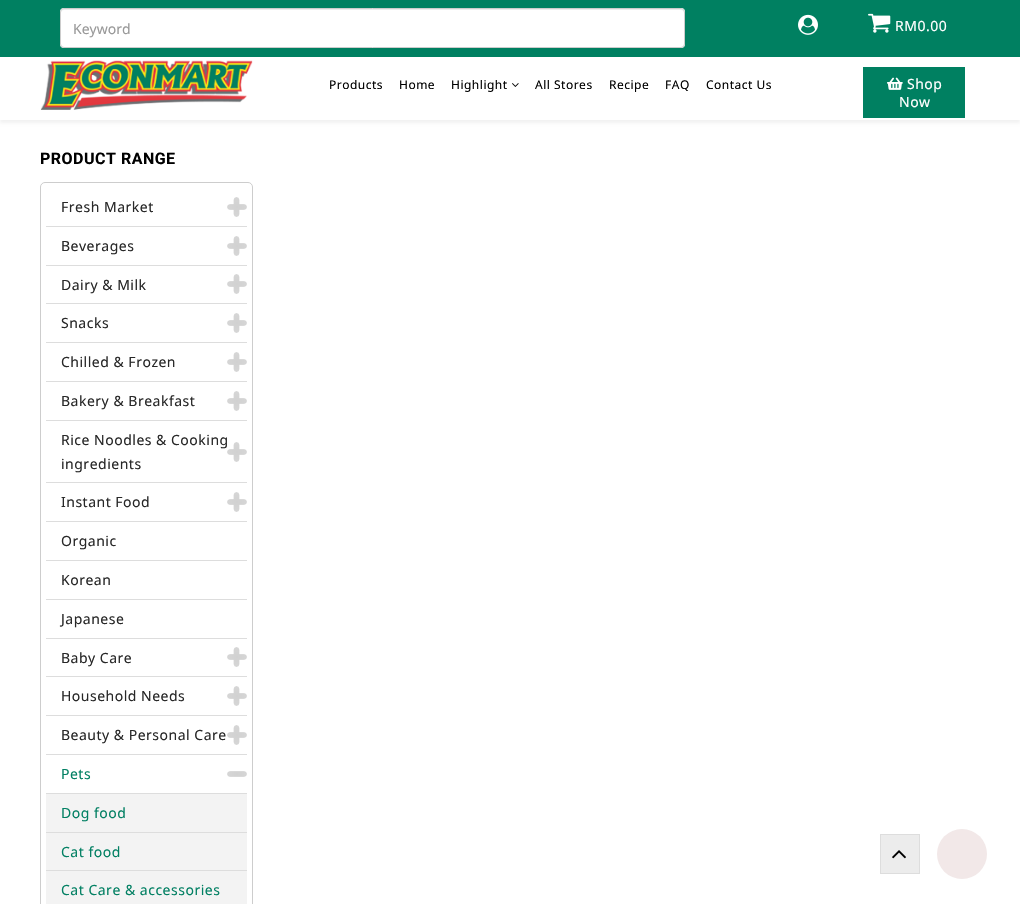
void draw(SkCanvas* canvas) {
    SkPaint paint;
    paint.setAntiAlias(true);
    auto face = [&](const char* family, int weight, float size, bool italic = false) {
        SkFontStyle style(weight, SkFontStyle::kNormal_Width,
            italic ? SkFontStyle::kItalic_Slant : SkFontStyle::kUpright_Slant);
        SkFont result(fontMgr->matchFamilyStyle(family, style), size);
        result.setSubpixel(true);
        return result;
    };
    auto write = [&](const char* s, float x, float y, const SkFont& font, SkColor color) {
        SkPaint ink(SkColor4f::FromColor(color));
        ink.setAntiAlias(true);
        canvas->drawString(s, x, y, font, ink);
    };
    auto writeSpaced = [&](const char* s, float x, float y, const SkFont& font, const SkPaint& ink, float letter, float word) {
        std::vector<SkGlyphID> glyphs(font.countText(s, strlen(s), SkTextEncoding::kUTF8));
        std::vector<float> xs(glyphs.size());
        font.textToGlyphs(s, strlen(s), SkTextEncoding::kUTF8, glyphs);
        font.getXPos(glyphs, xs, x);
        float extra = 0;
        for (size_t i = 0; i < glyphs.size(); i++) {
            xs[i] += extra;
            extra += letter + word * (glyphs[i] == font.unicharToGlyph(' '));
        }
        canvas->drawTextBlob(SkTextBlob::MakeFromPosHGlyphs(glyphs, xs, y, font), 0, 0, ink);
    };
    auto block = [&](float x, float y, float w, float h, SkColor color) {
        SkPaint ink(SkColor4f::FromColor(color));
        ink.setAntiAlias(true);
        canvas->drawRect(SkRect::MakeXYWH(x, y, w, h), ink);
    };
    auto card = [&](float x, float y, float w, float h, float radius, SkColor color) {
        SkPaint ink(SkColor4f::FromColor(color));
        ink.setAntiAlias(true);
        canvas->drawRoundRect(SkRect::MakeXYWH(x, y, w, h), radius, radius, ink);
    };
    auto paste = [&](const char* path, float x, float y, float w, float h) {
        auto image = SkImages::DeferredFromEncodedData(SkData::MakeFromFileName(path));
        canvas->drawImageRect(image, SkRect::MakeXYWH(x, y, w, h), SkSamplingOptions());
    };
    canvas->clear(SK_ColorWHITE);
    paint.setColor(SkColorSetARGB(13, 0, 0, 0));
    paint.setMaskFilter(SkMaskFilter::MakeBlur(kNormal_SkBlurStyle, 1.5f));
    canvas->drawRect(SkRect::MakeXYWH(0, 53, 1020, 70), paint);
    paint.setMaskFilter(nullptr);
    block(0, 0, 1020, 57, SkColorSetRGB(0, 128, 97));
    card(60, 8, 625, 40, 4, SK_ColorWHITE);
    paint.setColor(SkColorSetRGB(236, 236, 236));
    canvas->drawPath(SkPathBuilder().moveTo(64, 10).lineTo(681, 10).cubicTo(683, 10, 684, 11, 684, 13).lineTo(684, 12).cubicTo(684, 10, 683, 9, 681, 9).lineTo(64, 9).cubicTo(62, 9, 61, 10, 61, 12).lineTo(61, 13).cubicTo(61, 11, 62, 10, 64, 10).close().detach(), paint);
    paint.setStyle(SkPaint::kStroke_Style);
    paint.setStrokeWidth(1);
    paint.setColor(SkColorSetRGB(204, 204, 204));
    canvas->drawRoundRect(SkRect::MakeXYWH(60.5f, 8.5f, 624, 39), 3.5f, 3.5f, paint);
    auto kFont1 = face("Noto Sans", 400, 14);
    write("Keyword", 73, 34, kFont1, SkColorSetRGB(153, 153, 153));
    paste("pic1.png", 798, 14, 20, 21);
    paste("pic2.png", 868, 13, 23, 20);
    paint.setStyle(SkPaint::kFill_Style);
    paint.setColor(SK_ColorWHITE);
    writeSpaced("RM0.00", 895, 31, kFont1, paint, 0.5f, 0);
    block(0, 57, 1020, 63, SK_ColorWHITE);
    paste("pic3.png", 40, 60, 213, 50);
    auto kFont2 = face("Noto Sans", 400, 12);
    paint.setColor(SK_ColorBLACK);
    writeSpaced("Products", 329, 89, kFont2, paint, 0.5f, 0);
    writeSpaced("Home", 399, 89, kFont2, paint, 0.5f, 0);
    writeSpaced("Highlight", 451, 89, kFont2, paint, 0.5f, 0);
    paste("pic4.png", 512, 83, 7, 4);
    writeSpaced("All Stores", 535, 89, kFont2, paint, 0.5f, 0);
    writeSpaced("Recipe", 609, 89, kFont2, paint, 0.5f, 0);
    writeSpaced("FAQ", 665, 89, kFont2, paint, 0.5f, 0);
    writeSpaced("Contact Us", 706, 89, kFont2, paint, 0.5f, 0);
    block(863, 67, 102, 51, SkColorSetRGB(0, 128, 97));
    paste("pic5.png", 887, 77, 16, 13);
    paint.setColor(SK_ColorWHITE);
    writeSpaced("Shop", 907, 89, kFont1, paint, 0.5f, 0);
    writeSpaced("Now", 899, 107, kFont1, paint, 0.5f, 0);
    auto kFont3 = face("Roboto", 700, 16);
    paint.setColor(SK_ColorBLACK);
    writeSpaced("PRODUCT RANGE", 40, 164, kFont3, paint, 0.5f, 0);
    paint.setStyle(SkPaint::kStroke_Style);
    paint.setColor(SkColorSetRGB(205, 205, 205));
    canvas->drawRoundRect(SkRect::MakeXYWH(40.5f, 182.5f, 212, 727), 4.5f, 4.5f, paint);
    block(46, 226, 201, 1, SkColorSetRGB(221, 221, 221));
    paint.setStyle(SkPaint::kFill_Style);
    paint.setColor(SkColorSetRGB(40, 40, 40));
    writeSpaced("Fresh Market", 61, 212, kFont1, paint, 0.5f, 0);
    paste("pic6.png", 227, 197, 20, 20);
    block(46, 265, 201, 1, SkColorSetRGB(221, 221, 221));
    writeSpaced("Beverages", 61, 251, kFont1, paint, 0.5f, 0);
    paste("pic6.png", 227, 236, 20, 20);
    block(46, 303, 201, 1, SkColorSetRGB(221, 221, 221));
    writeSpaced("Dairy & Milk", 61, 290, kFont1, paint, 0.5f, 0);
    paste("pic6.png", 227, 274, 20, 20);
    block(46, 342, 201, 1, SkColorSetRGB(221, 221, 221));
    writeSpaced("Snacks", 61, 328, kFont1, paint, 0.5f, 0);
    paste("pic6.png", 227, 313, 20, 20);
    block(46, 381, 201, 1, SkColorSetRGB(221, 221, 221));
    writeSpaced("Chilled & Frozen", 61, 367, kFont1, paint, 0.5f, 0);
    paste("pic6.png", 227, 352, 20, 20);
    block(46, 420, 201, 1, SkColorSetRGB(221, 221, 221));
    writeSpaced("Bakery & Breakfast", 61, 406, kFont1, paint, 0.5f, 0);
    paste("pic6.png", 227, 391, 20, 20);
    block(46, 482, 201, 1, SkColorSetRGB(221, 221, 221));
    writeSpaced("Rice Noodles & Cooking", 61, 445, kFont1, paint, 0.5f, 0);
    writeSpaced("ingredients", 61, 469, kFont1, paint, 0.5f, 0);
    paste("pic6.png", 227, 442, 20, 20);
    block(46, 521, 201, 1, SkColorSetRGB(221, 221, 221));
    writeSpaced("Instant Food", 61, 507, kFont1, paint, 0.5f, 0);
    paste("pic6.png", 227, 492, 20, 20);
    block(46, 560, 201, 1, SkColorSetRGB(221, 221, 221));
    writeSpaced("Organic", 61, 546, kFont1, paint, 0.5f, 0);
    block(46, 599, 201, 1, SkColorSetRGB(221, 221, 221));
    writeSpaced("Korean", 61, 585, kFont1, paint, 0.5f, 0);
    block(46, 638, 201, 1, SkColorSetRGB(221, 221, 221));
    writeSpaced("Japanese", 61, 624, kFont1, paint, 0.5f, 0);
    block(46, 676, 201, 1, SkColorSetRGB(221, 221, 221));
    writeSpaced("Baby Care", 61, 663, kFont1, paint, 0.5f, 0);
    paste("pic6.png", 227, 647, 20, 20);
    block(46, 715, 201, 1, SkColorSetRGB(221, 221, 221));
    writeSpaced("Household Needs", 61, 701, kFont1, paint, 0.5f, 0);
    paste("pic6.png", 227, 686, 20, 20);
    block(46, 754, 201, 1, SkColorSetRGB(221, 221, 221));
    writeSpaced("Beauty & Personal Care", 61, 740, kFont1, paint, 0.5f, 0);
    paste("pic6.png", 227, 725, 20, 20);
    paint.setColor(SkColorSetRGB(2, 128, 99));
    writeSpaced("Pets", 61, 779, kFont1, paint, 0.5f, 0);
    paste("pic7.png", 227, 771, 20, 6);
    block(46, 794, 201, 110, SkColorSetRGB(243, 243, 243));
    block(46, 793, 201, 1, SkColorSetRGB(221, 221, 221));
    writeSpaced("Dog food", 61, 818, kFont1, paint, 0.5f, 0);
    block(46, 832, 201, 1, SkColorSetRGB(221, 221, 221));
    writeSpaced("Cat food", 61, 857, kFont1, paint, 0.5f, 0);
    block(46, 870, 201, 1, SkColorSetRGB(221, 221, 221));
    writeSpaced("Cat Care & accessories", 61, 895, kFont1, paint, 0.5f, 0);
    paint.setColor(SkColorSetRGB(242, 232, 232));
    canvas->drawCircle(962, 854, 25, paint);
    paint.setColor(SkColorSetRGB(236, 236, 236));
    canvas->drawRect(SkRect::MakeXYWH(880.5f, 834.5f, 39, 39), paint);
    paint.setStyle(SkPaint::kStroke_Style);
    paint.setColor(SkColorSetRGB(221, 221, 221));
    canvas->drawRect(SkRect::MakeXYWH(880.5f, 834.5f, 39, 39), paint);
    paste("pic8.png", 892, 850, 14, 9);
}
